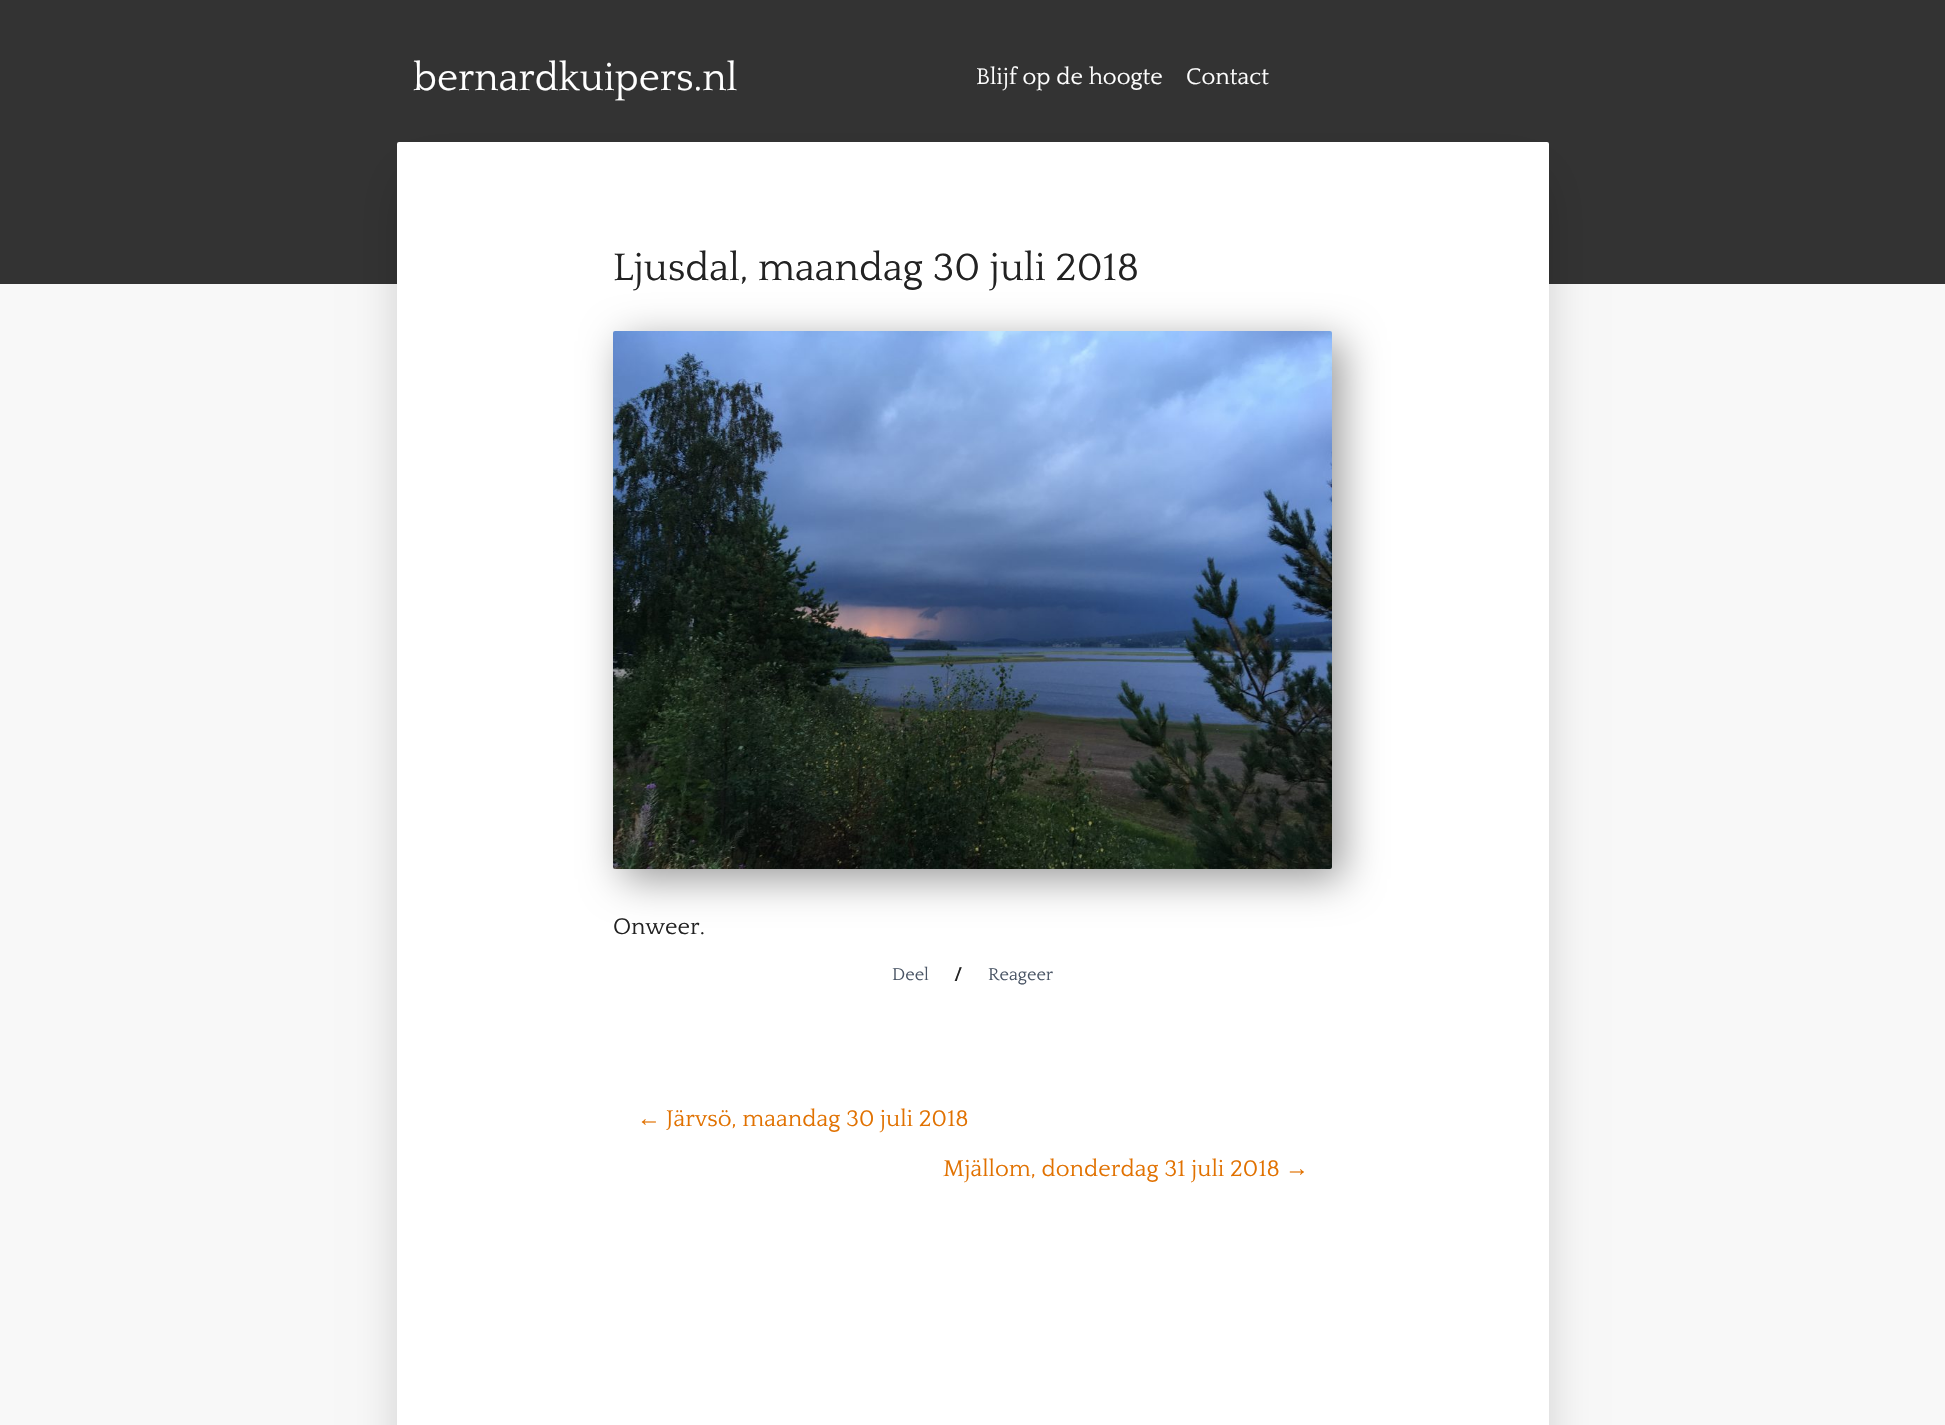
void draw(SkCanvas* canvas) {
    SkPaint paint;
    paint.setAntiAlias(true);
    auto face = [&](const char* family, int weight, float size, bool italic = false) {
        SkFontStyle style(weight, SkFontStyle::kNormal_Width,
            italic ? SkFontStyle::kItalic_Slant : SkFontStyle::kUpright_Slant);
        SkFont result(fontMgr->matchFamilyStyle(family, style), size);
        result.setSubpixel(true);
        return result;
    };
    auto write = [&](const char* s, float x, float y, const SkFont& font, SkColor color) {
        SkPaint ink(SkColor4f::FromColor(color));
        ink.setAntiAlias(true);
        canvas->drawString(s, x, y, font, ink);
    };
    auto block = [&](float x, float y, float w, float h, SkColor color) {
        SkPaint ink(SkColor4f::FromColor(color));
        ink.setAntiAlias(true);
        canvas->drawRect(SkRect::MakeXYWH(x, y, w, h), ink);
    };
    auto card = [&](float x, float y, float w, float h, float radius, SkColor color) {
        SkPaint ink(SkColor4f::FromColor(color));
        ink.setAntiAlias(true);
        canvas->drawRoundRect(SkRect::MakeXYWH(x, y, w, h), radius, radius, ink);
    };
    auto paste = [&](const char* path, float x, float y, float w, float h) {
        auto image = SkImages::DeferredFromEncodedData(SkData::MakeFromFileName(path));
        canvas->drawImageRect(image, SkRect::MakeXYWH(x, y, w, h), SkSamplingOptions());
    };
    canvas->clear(SkColorSetRGB(248, 248, 248));
    block(0, 0, 1945, 284, SkColorSetRGB(51, 51, 51));
    auto kFont1 = face("Quattrocento", 400, 40);
    write("bernardkuipers.nl", 413, 90, kFont1, SK_ColorWHITE);
    auto kFont2 = face("Quattrocento", 400, 23.75f);
    write("Blijf op de hoogte", 976, 84, kFont2, SK_ColorWHITE);
    write("Contact", 1186, 84, kFont2, SK_ColorWHITE);
    paint.setColor(SkColorSetARGB(64, 0, 0, 0));
    paint.setMaskFilter(SkMaskFilter::MakeBlur(kNormal_SkBlurStyle, 25));
    canvas->drawRect(SkRect::MakeXYWH(409, 179, 1128, 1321), paint);
    paint.setMaskFilter(nullptr);
    card(397, 142, 1152, 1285, 2, SK_ColorWHITE);
    paint.setColor(SkColorSetRGB(153, 153, 153));
    paint.setMaskFilter(SkMaskFilter::MakeBlur(kNormal_SkBlurStyle, 20));
    canvas->drawRoundRect(SkRect::MakeXYWH(623, 341, 719, 538), 2, 2, paint);
    paint.setMaskFilter(nullptr);
    write("Ljusdal, maandag 30 juli 2018", 613, 280, kFont1, SkColorSetRGB(34, 34, 34));
    paste("pic1.png", 613, 331, 719, 538);
    write("Onweer.", 613, 934, kFont2, SkColorSetRGB(34, 34, 34));
    auto kFont3 = face("Quattrocento", 400, 18);
    write("Deel", 892, 980, kFont3, SkColorSetRGB(74, 85, 101));
    auto kFont4 = face("Quattrocento", 700, 18);
    write("/", 954, 980, kFont4, SkColorSetRGB(34, 34, 34));
    write("Reageer", 988, 980, kFont3, SkColorSetRGB(74, 85, 101));
    auto kFont5 = face("Liberation Serif", 400, 23.75f);
    write("←", 637, 1126, kFont5, SkColorSetRGB(225, 113, 0));
    write("Järvsö, maandag 30 juli 2018", 666, 1126, kFont2, SkColorSetRGB(225, 113, 0));
    write("Mjällom, donderdag 31 juli 2018", 943, 1176, kFont2, SkColorSetRGB(225, 113, 0));
    write("→", 1285, 1176, kFont5, SkColorSetRGB(225, 113, 0));
}
